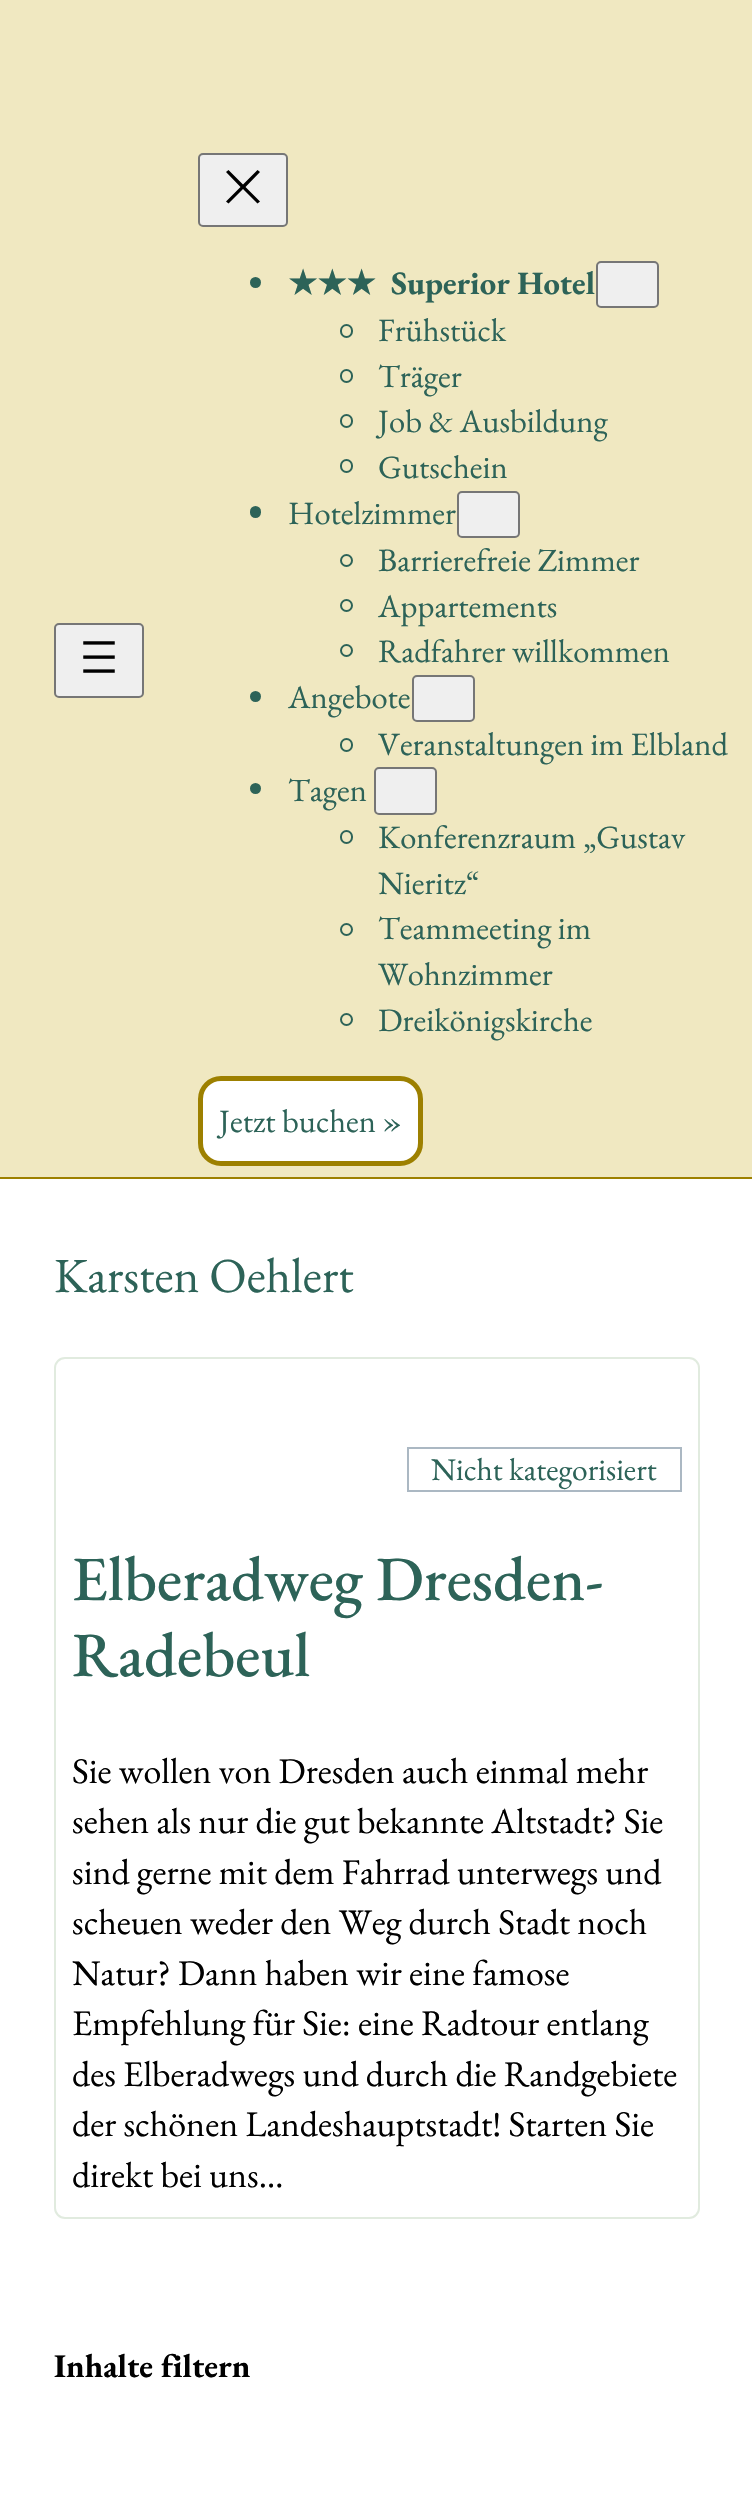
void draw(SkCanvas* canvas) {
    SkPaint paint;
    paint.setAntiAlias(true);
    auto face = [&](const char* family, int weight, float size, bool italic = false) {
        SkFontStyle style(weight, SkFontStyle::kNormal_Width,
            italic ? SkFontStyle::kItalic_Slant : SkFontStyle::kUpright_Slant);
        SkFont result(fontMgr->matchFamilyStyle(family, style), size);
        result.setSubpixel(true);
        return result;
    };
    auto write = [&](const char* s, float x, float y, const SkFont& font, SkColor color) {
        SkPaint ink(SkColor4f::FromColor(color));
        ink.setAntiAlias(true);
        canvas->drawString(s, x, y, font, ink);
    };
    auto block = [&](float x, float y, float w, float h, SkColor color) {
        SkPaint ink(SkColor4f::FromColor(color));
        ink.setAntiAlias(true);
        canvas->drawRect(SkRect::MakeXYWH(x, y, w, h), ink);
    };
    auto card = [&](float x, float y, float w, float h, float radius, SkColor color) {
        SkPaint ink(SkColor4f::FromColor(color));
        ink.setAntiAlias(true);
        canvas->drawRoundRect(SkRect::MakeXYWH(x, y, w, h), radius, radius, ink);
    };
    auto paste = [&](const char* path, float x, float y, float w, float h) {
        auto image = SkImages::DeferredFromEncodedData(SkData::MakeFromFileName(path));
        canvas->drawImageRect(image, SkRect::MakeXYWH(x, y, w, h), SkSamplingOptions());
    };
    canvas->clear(SK_ColorWHITE);
    block(0, 0, 752, 1177, SkColorSetRGB(240, 232, 193));
    block(0, 1177, 752, 2, SkColorSetRGB(157, 128, 0));
    paint.setColor(SkColorSetRGB(239, 239, 239));
    canvas->drawRoundRect(SkRect::MakeXYWH(55, 624, 88, 73), 4, 4, paint);
    paint.setStyle(SkPaint::kStroke_Style);
    paint.setStrokeWidth(2);
    paint.setColor(SkColorSetRGB(118, 118, 118));
    canvas->drawRoundRect(SkRect::MakeXYWH(55, 624, 88, 73), 4, 4, paint);
    paste("pic1.png", 83, 641, 32, 32);
    paint.setStyle(SkPaint::kFill_Style);
    paint.setColor(SkColorSetRGB(239, 239, 239));
    canvas->drawRoundRect(SkRect::MakeXYWH(199, 154, 88, 72), 4, 4, paint);
    paint.setStyle(SkPaint::kStroke_Style);
    paint.setColor(SkColorSetRGB(118, 118, 118));
    canvas->drawRoundRect(SkRect::MakeXYWH(199, 154, 88, 72), 4, 4, paint);
    paint.setStyle(SkPaint::kFill_Style);
    paint.setColor(SK_ColorBLACK);
    canvas->drawPath(SkPathBuilder().moveTo(245.5f, 187).lineTo(260, 172).lineTo(257.5f, 170).lineTo(243, 184.5f).lineTo(228.5f, 170).lineTo(226, 172).lineTo(240.5f, 187).lineTo(226, 201.5f).lineTo(228.5f, 203.5f).lineTo(243, 189).lineTo(257.5f, 203.5f).lineTo(260, 201.5f).close().detach(), paint);
    paint.setColor(SkColorSetRGB(45, 99, 88));
    canvas->drawCircle(255.5f, 282.5f, 5.5f, paint);
    auto kFont1 = face("DejaVu Sans", 700, 32.6f);
    write("★★★", 288, 294, kFont1, SkColorSetRGB(45, 99, 88));
    auto kFont2 = face("EB Garamond", 700, 32.6f);
    write("Superior Hotel", 391, 294, kFont2, SkColorSetRGB(45, 99, 88));
    paint.setColor(SkColorSetRGB(239, 239, 239));
    canvas->drawRoundRect(SkRect::MakeXYWH(597, 262, 61, 45), 4, 4, paint);
    paint.setStyle(SkPaint::kStroke_Style);
    paint.setColor(SkColorSetRGB(118, 118, 118));
    canvas->drawRoundRect(SkRect::MakeXYWH(597, 262, 61, 45), 4, 4, paint);
    paint.setColor(SkColorSetRGB(45, 99, 88));
    canvas->drawRoundRect(SkRect::MakeXYWH(341, 325, 11, 12), 5.5f, 5.5f, paint);
    auto kFont3 = face("EB Garamond", 400, 32.6f);
    write("Frühstück", 378, 341, kFont3, SkColorSetRGB(45, 99, 88));
    canvas->drawRoundRect(SkRect::MakeXYWH(341, 370, 11, 12), 5.5f, 5.5f, paint);
    write("Träger", 378, 387, kFont3, SkColorSetRGB(45, 99, 88));
    canvas->drawRoundRect(SkRect::MakeXYWH(341, 415, 11, 12), 5.5f, 5.5f, paint);
    write("Job & Ausbildung", 378, 432, kFont3, SkColorSetRGB(45, 99, 88));
    canvas->drawRoundRect(SkRect::MakeXYWH(341, 460, 11, 12), 5.5f, 5.5f, paint);
    write("Gutschein", 378, 478, kFont3, SkColorSetRGB(45, 99, 88));
    card(250, 506, 11, 12, 5.5f, SkColorSetRGB(45, 99, 88));
    write("Hotelzimmer", 288, 524, kFont3, SkColorSetRGB(45, 99, 88));
    paint.setStyle(SkPaint::kFill_Style);
    paint.setColor(SkColorSetRGB(239, 239, 239));
    canvas->drawRoundRect(SkRect::MakeXYWH(458, 492, 61, 45), 4, 4, paint);
    paint.setStyle(SkPaint::kStroke_Style);
    paint.setColor(SkColorSetRGB(118, 118, 118));
    canvas->drawRoundRect(SkRect::MakeXYWH(458, 492, 61, 45), 4, 4, paint);
    paint.setColor(SkColorSetRGB(45, 99, 88));
    canvas->drawCircle(346.5f, 560.5f, 5.5f, paint);
    write("Barrierefreie Zimmer", 378, 571, kFont3, SkColorSetRGB(45, 99, 88));
    canvas->drawCircle(346.5f, 605.5f, 5.5f, paint);
    write("Appartements", 378, 617, kFont3, SkColorSetRGB(45, 99, 88));
    canvas->drawCircle(346.5f, 650.5f, 5.5f, paint);
    write("Radfahrer willkommen", 378, 662, kFont3, SkColorSetRGB(45, 99, 88));
    paint.setStyle(SkPaint::kFill_Style);
    canvas->drawCircle(255.5f, 696.5f, 5.5f, paint);
    write("Angebote", 288, 708, kFont3, SkColorSetRGB(45, 99, 88));
    paint.setColor(SkColorSetRGB(239, 239, 239));
    canvas->drawRoundRect(SkRect::MakeXYWH(413, 676, 61, 45), 4, 4, paint);
    paint.setStyle(SkPaint::kStroke_Style);
    paint.setColor(SkColorSetRGB(118, 118, 118));
    canvas->drawRoundRect(SkRect::MakeXYWH(413, 676, 61, 45), 4, 4, paint);
    paint.setColor(SkColorSetRGB(45, 99, 88));
    canvas->drawRoundRect(SkRect::MakeXYWH(341, 739, 11, 12), 5.5f, 5.5f, paint);
    write("Veranstaltungen im Elbland", 378, 755, kFont3, SkColorSetRGB(45, 99, 88));
    paint.setStyle(SkPaint::kFill_Style);
    canvas->drawCircle(255.5f, 788.5f, 5.5f, paint);
    write("Tagen", 288, 801, kFont3, SkColorSetRGB(45, 99, 88));
    paint.setColor(SkColorSetRGB(239, 239, 239));
    canvas->drawRoundRect(SkRect::MakeXYWH(375, 768, 61, 46), 4, 4, paint);
    paint.setStyle(SkPaint::kStroke_Style);
    paint.setColor(SkColorSetRGB(118, 118, 118));
    canvas->drawRoundRect(SkRect::MakeXYWH(375, 768, 61, 46), 4, 4, paint);
    paint.setColor(SkColorSetRGB(45, 99, 88));
    canvas->drawRoundRect(SkRect::MakeXYWH(341, 831, 11, 12), 5.5f, 5.5f, paint);
    write("Konferenzraum „Gustav", 378, 848, kFont3, SkColorSetRGB(45, 99, 88));
    write("Nieritz“", 378, 894, kFont3, SkColorSetRGB(45, 99, 88));
    canvas->drawCircle(346.5f, 929.5f, 5.5f, paint);
    write("Teammeeting im", 378, 939, kFont3, SkColorSetRGB(45, 99, 88));
    write("Wohnzimmer", 378, 985, kFont3, SkColorSetRGB(45, 99, 88));
    canvas->drawCircle(346.5f, 1019.5f, 5.5f, paint);
    write("Dreikönigskirche", 378, 1031, kFont3, SkColorSetRGB(45, 99, 88));
    paint.setStyle(SkPaint::kFill_Style);
    paint.setColor(SK_ColorWHITE);
    canvas->drawRoundRect(SkRect::MakeXYWH(200.5f, 1078.5f, 220, 85), 20.5f, 20.5f, paint);
    paint.setStyle(SkPaint::kStroke_Style);
    paint.setStrokeWidth(5);
    paint.setColor(SkColorSetRGB(157, 128, 0));
    canvas->drawRoundRect(SkRect::MakeXYWH(200.5f, 1078.5f, 220, 85), 20.5f, 20.5f, paint);
    write("Jetzt buchen »", 219, 1132, kFont3, SkColorSetRGB(45, 99, 88));
    auto kFont4 = face("EB Garamond", 400, 49);
    write("Karsten Oehlert", 54, 1292, kFont4, SkColorSetRGB(45, 99, 88));
    paint.setStrokeWidth(2);
    paint.setColor(SkColorSetRGB(225, 235, 223));
    canvas->drawRoundRect(SkRect::MakeXYWH(55, 1358, 644, 860), 10, 10, paint);
    paint.setColor(SkColorSetRGB(171, 184, 195));
    canvas->drawRect(SkRect::MakeXYWH(408, 1448, 273, 43), paint);
    auto kFont5 = face("EB Garamond", 400, 31.5f);
    write("Nicht kategorisiert", 431, 1480, kFont5, SkColorSetRGB(45, 99, 88));
    auto kFont6 = face("EB Garamond", 500, 63);
    write("Elberadweg Dresden-", 72, 1600, kFont6, SkColorSetRGB(45, 99, 88));
    write("Radebeul", 72, 1676, kFont6, SkColorSetRGB(45, 99, 88));
    auto kFont7 = face("EB Garamond", 400, 36);
    write("Sie wollen von Dresden auch einmal mehr", 72, 1783, kFont7, SK_ColorBLACK);
    write("sehen als nur die gut bekannte Altstadt? Sie", 72, 1833, kFont7, SK_ColorBLACK);
    write("sind gerne mit dem Fahrrad unterwegs und", 72, 1884, kFont7, SK_ColorBLACK);
    write("scheuen weder den Weg durch Stadt noch", 72, 1934, kFont7, SK_ColorBLACK);
    write("Natur? Dann haben wir eine famose", 72, 1985, kFont7, SK_ColorBLACK);
    write("Empfehlung für Sie: eine Radtour entlang", 72, 2035, kFont7, SK_ColorBLACK);
    write("des Elberadwegs und durch die Randgebiete", 72, 2086, kFont7, SK_ColorBLACK);
    write("der schönen Landeshauptstadt! Starten Sie", 72, 2136, kFont7, SK_ColorBLACK);
    write("direkt bei uns…", 72, 2187, kFont7, SK_ColorBLACK);
    auto kFont8 = face("EB Garamond", 700, 33);
    write("Inhalte filtern", 54, 2377, kFont8, SK_ColorBLACK);
}
